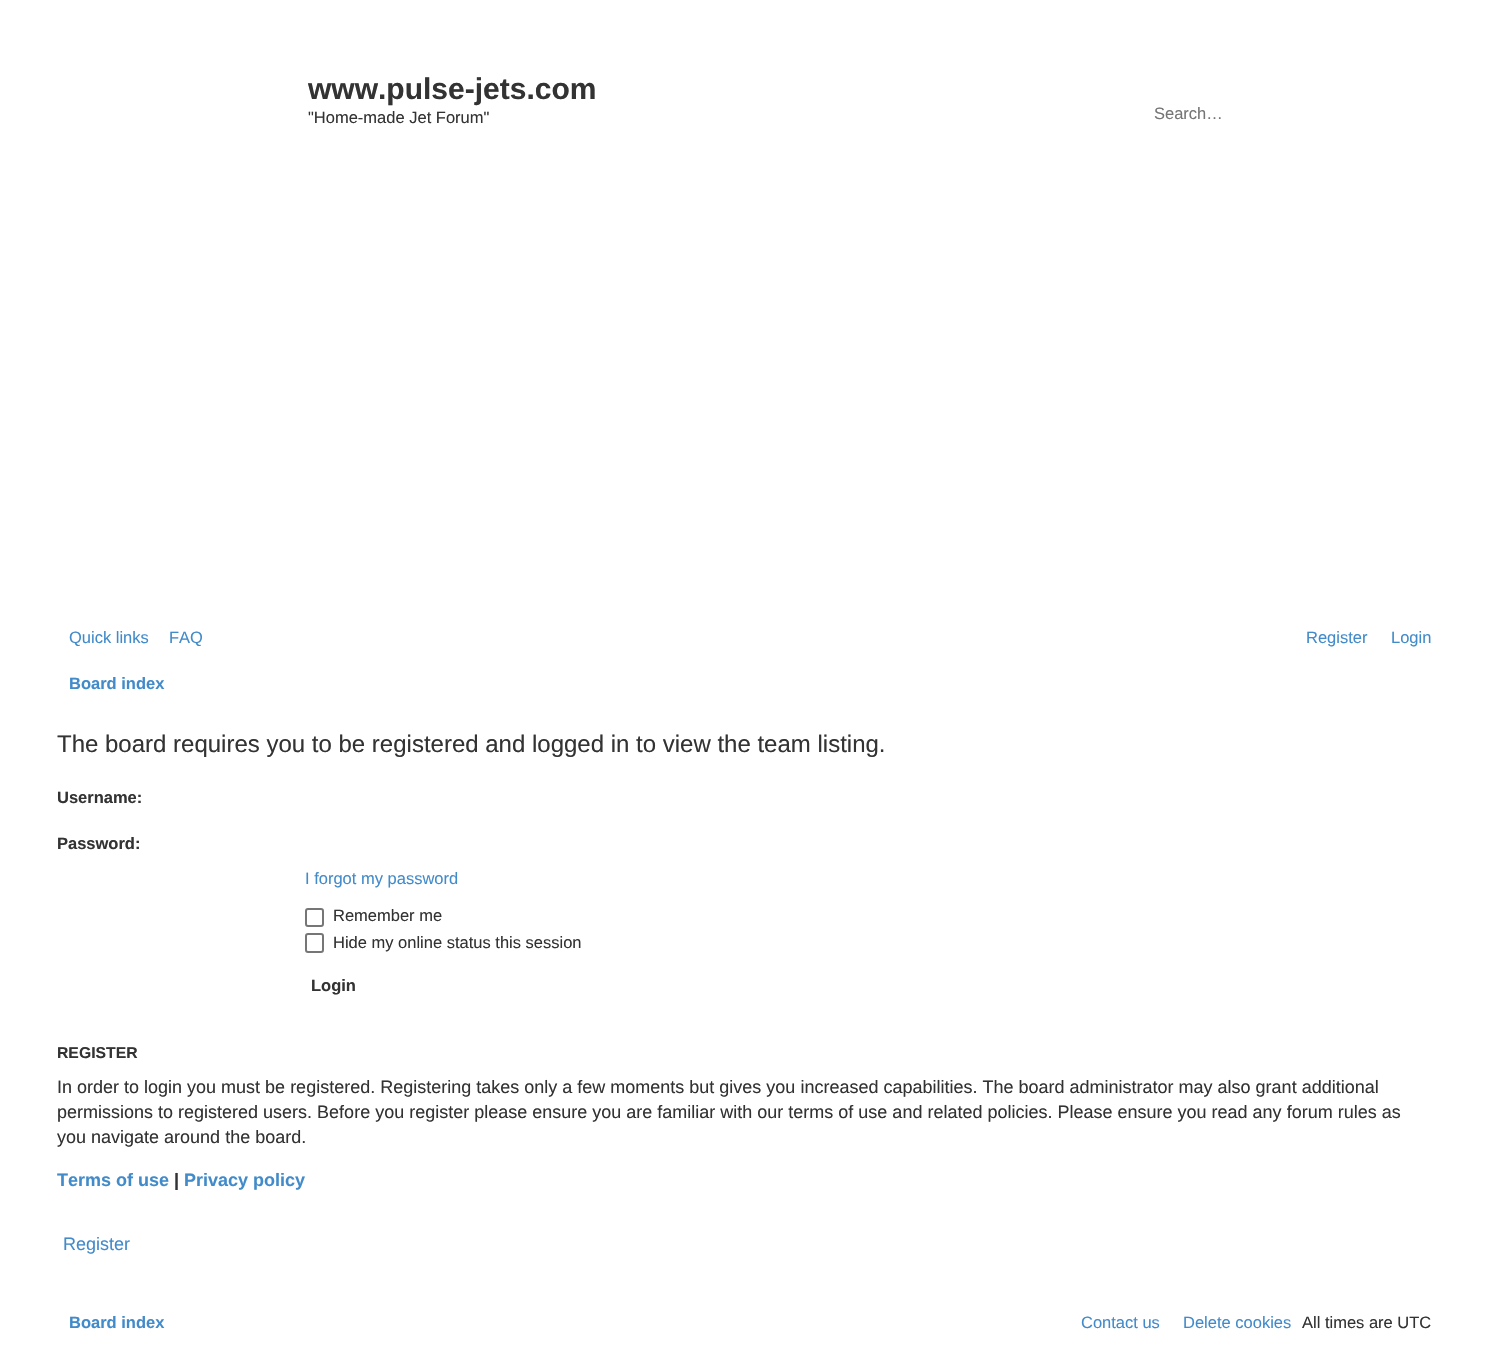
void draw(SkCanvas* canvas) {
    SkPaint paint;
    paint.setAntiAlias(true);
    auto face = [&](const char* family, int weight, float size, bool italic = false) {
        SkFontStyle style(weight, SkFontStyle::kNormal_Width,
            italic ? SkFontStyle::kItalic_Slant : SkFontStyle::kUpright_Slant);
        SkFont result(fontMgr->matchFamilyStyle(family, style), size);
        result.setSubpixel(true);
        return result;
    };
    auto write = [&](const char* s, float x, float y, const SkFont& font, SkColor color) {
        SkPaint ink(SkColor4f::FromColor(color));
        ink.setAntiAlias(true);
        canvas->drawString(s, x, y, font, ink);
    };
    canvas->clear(SK_ColorWHITE);
    auto kFont1 = face("Liberation Sans", 700, 30);
    write("www.pulse-jets.com", 308, 99, kFont1, SkColorSetRGB(51, 51, 51));
    auto kFont2 = face("Liberation Sans", 400, 16.5f);
    write("\"Home-made Jet Forum\"", 308, 123, kFont2, SkColorSetRGB(51, 51, 51));
    write("Search…", 1154, 119, kFont2, SkColorSetRGB(117, 117, 117));
    write("Quick links", 69, 643, kFont2, SkColorSetRGB(66, 139, 202));
    write("FAQ", 169, 643, kFont2, SkColorSetRGB(66, 139, 202));
    write("Register", 1306, 643, kFont2, SkColorSetRGB(66, 139, 202));
    write("Login", 1391, 643, kFont2, SkColorSetRGB(66, 139, 202));
    auto kFont3 = face("Liberation Sans", 700, 16.5f);
    write("Board index", 69, 689, kFont3, SkColorSetRGB(66, 139, 202));
    auto kFont4 = face("Liberation Sans", 400, 24);
    write("The board requires you to be registered and logged in to view the team listing.", 57, 752, kFont4, SkColorSetRGB(51, 51, 51));
    write("Username:", 57, 803, kFont3, SkColorSetRGB(51, 51, 51));
    write("Password:", 57, 849, kFont3, SkColorSetRGB(51, 51, 51));
    write("I forgot my password", 305, 884, kFont2, SkColorSetRGB(66, 139, 202));
    paint.setStyle(SkPaint::kStroke_Style);
    paint.setStrokeWidth(2);
    paint.setColor(SkColorSetRGB(118, 118, 118));
    canvas->drawRoundRect(SkRect::MakeXYWH(306, 909, 17, 17), 2, 2, paint);
    write("Remember me", 333, 921, kFont2, SkColorSetRGB(51, 51, 51));
    canvas->drawRoundRect(SkRect::MakeXYWH(306, 934, 17, 18), 2, 2, paint);
    write("Hide my online status this session", 333, 948, kFont2, SkColorSetRGB(51, 51, 51));
    write("Login", 311, 991, kFont3, SkColorSetRGB(51, 51, 51));
    auto kFont5 = face("Liberation Sans", 700, 15.75f);
    write("REGISTER", 57, 1058, kFont5, SkColorSetRGB(51, 51, 51));
    auto kFont6 = face("Liberation Sans", 400, 18);
    write("In order to login you must be registered. Registering takes only a few moments but gives you increased capabilities. The board administrator may also grant additional", 57, 1093, kFont6, SkColorSetRGB(51, 51, 51));
    write("permissions to registered users. Before you register please ensure you are familiar with our terms of use and related policies. Please ensure you read any forum rules as", 57, 1118, kFont6, SkColorSetRGB(51, 51, 51));
    write("you navigate around the board.", 57, 1143, kFont6, SkColorSetRGB(51, 51, 51));
    auto kFont7 = face("Liberation Sans", 700, 18);
    write("Terms of use", 57, 1186, kFont7, SkColorSetRGB(66, 139, 202));
    write("|", 174, 1186, kFont7, SkColorSetRGB(51, 51, 51));
    write("Privacy policy", 184, 1186, kFont7, SkColorSetRGB(66, 139, 202));
    write("Register", 63, 1250, kFont6, SkColorSetRGB(66, 139, 202));
    write("Board index", 69, 1328, kFont3, SkColorSetRGB(66, 139, 202));
    write("Contact us", 1081, 1328, kFont2, SkColorSetRGB(66, 139, 202));
    write("Delete cookies", 1183, 1328, kFont2, SkColorSetRGB(66, 139, 202));
    write("All times are UTC", 1302, 1328, kFont2, SkColorSetRGB(51, 51, 51));
}
